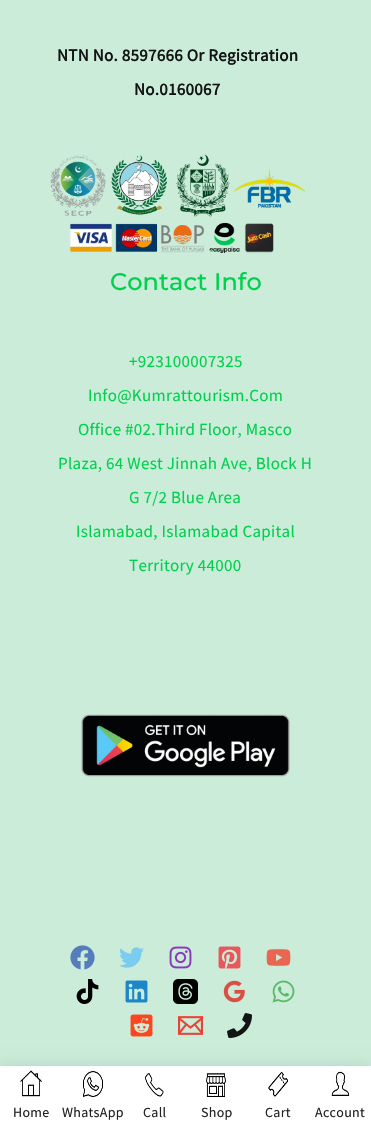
void draw(SkCanvas* canvas) {
    SkPaint paint;
    paint.setAntiAlias(true);
    auto face = [&](const char* family, int weight, float size, bool italic = false) {
        SkFontStyle style(weight, SkFontStyle::kNormal_Width,
            italic ? SkFontStyle::kItalic_Slant : SkFontStyle::kUpright_Slant);
        SkFont result(fontMgr->matchFamilyStyle(family, style), size);
        result.setSubpixel(true);
        return result;
    };
    auto writeSpaced = [&](const char* s, float x, float y, const SkFont& font, const SkPaint& ink, float letter, float word) {
        std::vector<SkGlyphID> glyphs(font.countText(s, strlen(s), SkTextEncoding::kUTF8));
        std::vector<float> xs(glyphs.size());
        font.textToGlyphs(s, strlen(s), SkTextEncoding::kUTF8, glyphs);
        font.getXPos(glyphs, xs, x);
        float extra = 0;
        for (size_t i = 0; i < glyphs.size(); i++) {
            xs[i] += extra;
            extra += letter + word * (glyphs[i] == font.unicharToGlyph(' '));
        }
        canvas->drawTextBlob(SkTextBlob::MakeFromPosHGlyphs(glyphs, xs, y, font), 0, 0, ink);
    };
    auto block = [&](float x, float y, float w, float h, SkColor color) {
        SkPaint ink(SkColor4f::FromColor(color));
        ink.setAntiAlias(true);
        canvas->drawRect(SkRect::MakeXYWH(x, y, w, h), ink);
    };
    auto paste = [&](const char* path, float x, float y, float w, float h) {
        auto image = SkImages::DeferredFromEncodedData(SkData::MakeFromFileName(path));
        canvas->drawImageRect(image, SkRect::MakeXYWH(x, y, w, h), SkSamplingOptions());
    };
    canvas->clear(SkColorSetRGB(202, 236, 217));
    auto kFont1 = face("Source Sans Pro", 700, 17);
    paint.setColor(SkColorSetRGB(18, 20, 19));
    writeSpaced("NTN No. 8597666 Or Registration", 57, 61, kFont1, paint, 0.3f, 0);
    writeSpaced("No.0160067", 134, 95, kFont1, paint, 0.3f, 0);
    paste("pic1.png", 50, 154, 255, 100);
    auto kFont2 = face("Montserrat", 500, 24);
    paint.setColor(SkColorSetRGB(0, 209, 77));
    writeSpaced("Contact Info", 110, 290, kFont2, paint, 0.1f, 0);
    auto kFont3 = face("Source Sans Pro", 400, 17);
    writeSpaced("+923100007325", 129, 367, kFont3, paint, 0.3f, 0);
    writeSpaced("Info@Kumrattourism.Com", 88, 401, kFont3, paint, 0.3f, 0);
    writeSpaced("Office #02.Third Floor, Masco", 78, 435, kFont3, paint, 0.3f, 0);
    writeSpaced("Plaza, 64 West Jinnah Ave, Block H", 58, 469, kFont3, paint, 0.3f, 0);
    writeSpaced("G 7/2 Blue Area", 129, 503, kFont3, paint, 0.3f, 0);
    writeSpaced("Islamabad, Islamabad Capital", 76, 537, kFont3, paint, 0.3f, 0);
    writeSpaced("Territory 44000", 129, 571, kFont3, paint, 0.3f, 0);
    paste("pic2.png", 81, 714, 209, 63);
    paste("pic3.png", 70, 945, 25, 25);
    paste("pic4.png", 119, 947, 25, 21);
    paste("pic5.png", 169, 946, 23, 23);
    paste("pic6.png", 218, 946, 23, 23);
    paste("pic7.png", 266, 949, 25, 17);
    paste("pic8.png", 76, 979, 23, 25);
    paste("pic9.png", 125, 980, 23, 23);
    paste("pic10.png", 173, 979, 25, 25);
    paste("pic11.png", 223, 980, 22, 23);
    paste("pic12.png", 272, 980, 23, 23);
    paste("pic13.png", 130, 1014, 23, 23);
    paste("pic14.png", 178, 1016, 25, 19);
    paste("pic15.png", 227, 1013, 25, 25);
    paint.setColor(SkColorSetARGB(20, 0, 0, 0));
    paint.setMaskFilter(SkMaskFilter::MakeBlur(kNormal_SkBlurStyle, 6));
    canvas->drawRect(SkRect::MakeXYWH(0, 1064, 371, 70), paint);
    paint.setMaskFilter(nullptr);
    block(0, 1066, 371, 70, SK_ColorWHITE);
    paste("pic16.png", 20, 1070, 22, 27);
    auto kFont4 = face("Source Sans Pro", 400, 14);
    paint.setColor(SkColorSetRGB(34, 34, 34));
    writeSpaced("Home", 13, 1117, kFont4, paint, 0.3f, 0);
    paste("pic17.png", 83, 1071, 20, 26);
    writeSpaced("WhatsApp", 62, 1117, kFont4, paint, 0.3f, 0);
    paste("pic18.png", 145, 1073, 19, 24);
    writeSpaced("Call", 143, 1117, kFont4, paint, 0.3f, 0);
    paste("pic19.png", 206, 1073, 20, 25);
    writeSpaced("Shop", 201, 1117, kFont4, paint, 0.3f, 0);
    paste("pic20.png", 268, 1071, 20, 26);
    writeSpaced("Cart", 265, 1117, kFont4, paint, 0.3f, 0);
    paste("pic21.png", 331, 1071, 19, 25);
    writeSpaced("Account", 315, 1117, kFont4, paint, 0.3f, 0);
}
